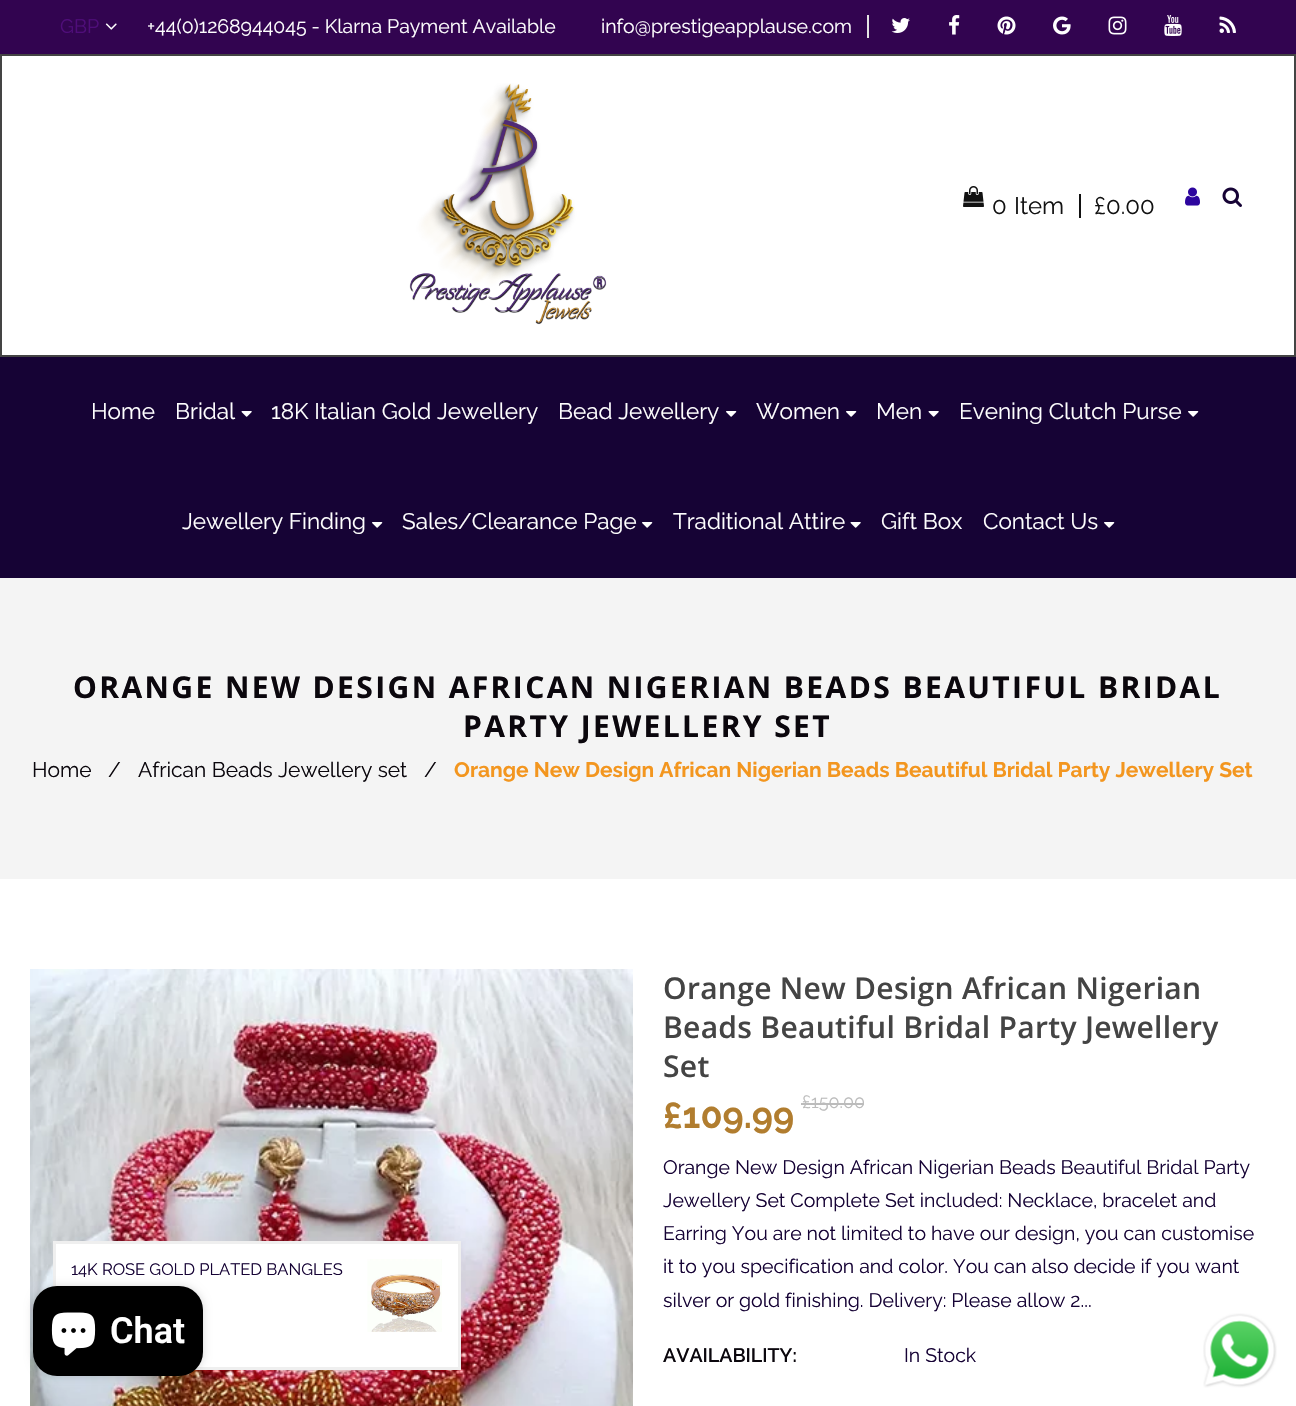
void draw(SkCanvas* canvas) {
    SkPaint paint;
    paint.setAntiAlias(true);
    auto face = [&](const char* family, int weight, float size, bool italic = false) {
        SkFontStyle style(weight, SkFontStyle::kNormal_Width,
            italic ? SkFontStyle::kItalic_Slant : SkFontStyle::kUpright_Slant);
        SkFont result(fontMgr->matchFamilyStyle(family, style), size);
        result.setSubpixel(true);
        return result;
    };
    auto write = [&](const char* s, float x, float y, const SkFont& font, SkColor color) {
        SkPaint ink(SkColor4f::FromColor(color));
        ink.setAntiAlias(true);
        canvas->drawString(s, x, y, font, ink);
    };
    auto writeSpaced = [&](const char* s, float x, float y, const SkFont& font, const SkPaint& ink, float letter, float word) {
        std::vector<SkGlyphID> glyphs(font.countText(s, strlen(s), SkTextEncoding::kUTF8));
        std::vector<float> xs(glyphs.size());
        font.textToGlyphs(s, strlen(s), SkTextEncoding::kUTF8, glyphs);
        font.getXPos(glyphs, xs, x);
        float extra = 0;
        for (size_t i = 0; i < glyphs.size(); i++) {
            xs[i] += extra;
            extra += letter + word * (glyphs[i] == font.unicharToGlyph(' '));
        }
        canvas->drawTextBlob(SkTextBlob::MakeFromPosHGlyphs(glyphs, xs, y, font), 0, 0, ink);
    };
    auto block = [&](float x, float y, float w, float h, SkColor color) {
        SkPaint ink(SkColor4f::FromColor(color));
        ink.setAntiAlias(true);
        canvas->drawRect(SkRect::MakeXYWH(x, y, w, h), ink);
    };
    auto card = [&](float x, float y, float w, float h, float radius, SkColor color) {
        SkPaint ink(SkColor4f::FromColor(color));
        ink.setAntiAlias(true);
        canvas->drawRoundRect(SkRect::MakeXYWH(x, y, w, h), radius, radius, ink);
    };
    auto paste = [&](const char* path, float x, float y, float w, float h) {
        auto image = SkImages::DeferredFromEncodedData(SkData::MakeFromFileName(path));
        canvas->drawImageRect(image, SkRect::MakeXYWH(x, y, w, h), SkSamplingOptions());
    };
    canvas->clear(SK_ColorWHITE);
    block(0, 0, 1296, 54, SkColorSetRGB(50, 4, 80));
    auto kFont1 = face("Raleway", 400, 19.5f);
    write("GBP", 60, 33, kFont1, SkColorSetRGB(79, 13, 122));
    paste("pic1.png", 105, 23, 12, 7);
    write("+44(0)1268944045 - Klarna Payment Available", 147, 33, kFont1, SK_ColorWHITE);
    write("info@prestigeapplause.com", 601, 33, kFont1, SK_ColorWHITE);
    block(867, 15, 2, 23, SkColorSetRGB(228, 228, 228));
    paste("pic2.png", 891, 18, 19, 15);
    paste("pic3.png", 949, 15, 11, 20);
    paste("pic4.png", 997, 16, 19, 19);
    paste("pic5.png", 1053, 16, 18, 19);
    paste("pic6.png", 1108, 16, 19, 19);
    paste("pic7.png", 1164, 15, 18, 21);
    paste("pic8.png", 1219, 16, 17, 17);
    paint.setStyle(SkPaint::kStroke_Style);
    paint.setStrokeWidth(2);
    paint.setColor(SkColorSetRGB(68, 68, 68));
    canvas->drawRect(SkRect::MakeXYWH(1, 55, 1294, 301), paint);
    paste("pic9.png", 409, 83, 198, 242);
    paste("pic10.png", 963, 186, 21, 21);
    auto kFont2 = face("Raleway", 400, 24);
    write("0", 992, 214, kFont2, SkColorSetRGB(18, 18, 18));
    write("Item", 1014, 214, kFont2, SkColorSetRGB(18, 18, 18));
    block(1079, 194, 2, 24, SkColorSetRGB(18, 18, 18));
    write("£0.00", 1094, 214, kFont2, SkColorSetRGB(18, 18, 18));
    paste("pic11.png", 1185, 187, 15, 19);
    paste("pic12.png", 1222, 187, 20, 20);
    block(0, 357, 1296, 221, SkColorSetRGB(22, 3, 53));
    auto kFont3 = face("Raleway", 400, 22.5f);
    write("Home", 91, 419, kFont3, SK_ColorWHITE);
    write("Bridal", 175, 419, kFont3, SK_ColorWHITE);
    paste("pic13.png", 241, 411, 11, 6);
    write("18K Italian Gold Jewellery", 271, 419, kFont3, SK_ColorWHITE);
    write("Bead Jewellery", 558, 419, kFont3, SK_ColorWHITE);
    paste("pic14.png", 726, 411, 11, 6);
    write("Women", 756, 419, kFont3, SK_ColorWHITE);
    paste("pic14.png", 846, 411, 11, 6);
    write("Men", 876, 419, kFont3, SK_ColorWHITE);
    paste("pic13.png", 928, 411, 11, 6);
    write("Evening Clutch Purse", 959, 419, kFont3, SK_ColorWHITE);
    paste("pic14.png", 1188, 411, 11, 6);
    write("Jewellery Finding", 182, 529, kFont3, SK_ColorWHITE);
    paste("pic14.png", 372, 522, 11, 6);
    write("Sales/Clearance Page", 402, 529, kFont3, SK_ColorWHITE);
    paste("pic14.png", 642, 522, 11, 6);
    write("Traditional Attire", 673, 529, kFont3, SK_ColorWHITE);
    paste("pic13.png", 850, 522, 11, 6);
    write("Gift Box", 881, 529, kFont3, SK_ColorWHITE);
    write("Contact Us", 983, 529, kFont3, SK_ColorWHITE);
    paste("pic14.png", 1104, 522, 11, 6);
    block(0, 578, 1296, 301, SkColorSetRGB(244, 244, 244));
    auto kFont4 = face("Open Sans", 700, 30);
    paint.setStyle(SkPaint::kFill_Style);
    paint.setColor(SkColorSetRGB(11, 7, 13));
    writeSpaced("ORANGE NEW DESIGN AFRICAN NIGERIAN BEADS BEAUTIFUL BRIDAL", 73, 698, kFont4, paint, 2.4f, 0);
    writeSpaced("PARTY JEWELLERY SET", 463, 737, kFont4, paint, 2.4f, 0);
    auto kFont5 = face("Raleway", 400, 21);
    write("Home", 32, 777, kFont5, SkColorSetRGB(11, 7, 13));
    write("/", 108, 777, kFont5, SkColorSetRGB(11, 7, 13));
    write("African Beads Jewellery set", 138, 777, kFont5, SkColorSetRGB(11, 7, 13));
    write("/", 424, 777, kFont5, SkColorSetRGB(11, 7, 13));
    auto kFont6 = face("Raleway", 700, 21);
    write("Orange New Design African Nigerian Beads Beautiful Bridal Party Jewellery Set", 454, 777, kFont6, SkColorSetRGB(243, 150, 31));
    paste("pic15.png", 30, 969, 603, 437);
    auto kFont7 = face("Open Sans", 600, 30);
    paint.setColor(SkColorSetRGB(68, 68, 68));
    writeSpaced("Orange New Design African Nigerian", 663, 999, kFont7, paint, 0.3f, 0);
    writeSpaced("Beads Beautiful Bridal Party Jewellery", 663, 1038, kFont7, paint, 0.3f, 0);
    writeSpaced("Set", 663, 1077, kFont7, paint, 0.3f, 0);
    auto kFont8 = face("Raleway", 700, 36);
    write("£109.99", 663, 1128, kFont8, SkColorSetRGB(177, 125, 47));
    auto kFont9 = face("Raleway", 400, 18);
    write("£150.00", 802, 1108, kFont9, SkColorSetRGB(188, 188, 188));
    block(801, 1103, 63, 2, SkColorSetRGB(188, 188, 188));
    write("Orange New Design African Nigerian Beads Beautiful Bridal Party", 663, 1174, kFont1, SkColorSetRGB(22, 3, 53));
    write("Jewellery Set Complete Set included: Necklace, bracelet and", 663, 1207, kFont1, SkColorSetRGB(22, 3, 53));
    write("Earring You are not limited to have our design, you can customise", 663, 1240, kFont1, SkColorSetRGB(22, 3, 53));
    write("it to you specification and color. You can also decide if you want", 663, 1273, kFont1, SkColorSetRGB(22, 3, 53));
    write("silver or gold finishing. Delivery: Please allow 2...", 663, 1307, kFont1, SkColorSetRGB(22, 3, 53));
    auto kFont10 = face("Raleway", 600, 19.5f);
    write("AVAILABILITY:", 663, 1362, kFont10, SkColorSetRGB(11, 7, 13));
    write("In Stock", 904, 1362, kFont1, SkColorSetRGB(22, 3, 53));
    paint.setColor(SK_ColorWHITE);
    canvas->drawRect(SkRect::MakeXYWH(54.5f, 1242.5f, 405, 126), paint);
    paint.setStyle(SkPaint::kStroke_Style);
    paint.setStrokeWidth(3);
    paint.setColor(SkColorSetRGB(239, 239, 239));
    canvas->drawRect(SkRect::MakeXYWH(54.5f, 1242.5f, 405, 126), paint);
    auto kFont11 = face("Raleway", 400, 16.5f);
    write("14K ROSE GOLD PLATED BANGLES", 71, 1275, kFont11, SkColorSetRGB(22, 3, 53));
    paste("pic16.png", 367, 1259, 75, 73);
    paint.setStyle(SkPaint::kFill_Style);
    paint.setColor(SkColorSetARGB(38, 0, 0, 0));
    paint.setMaskFilter(SkMaskFilter::MakeBlur(kNormal_SkBlurStyle, 4));
    canvas->drawRoundRect(SkRect::MakeXYWH(33, 1286, 170, 90), 24, 24, paint);
    paint.setMaskFilter(nullptr);
    card(33, 1286, 170, 90, 24, SK_ColorBLACK);
    paste("pic17.png", 51, 1312, 45, 44);
    auto kFont12 = face("Roboto", 600, 36);
    write("Chat", 110, 1343, kFont12, SK_ColorWHITE);
    paste("pic18.png", 1203, 1313, 74, 75);
}
